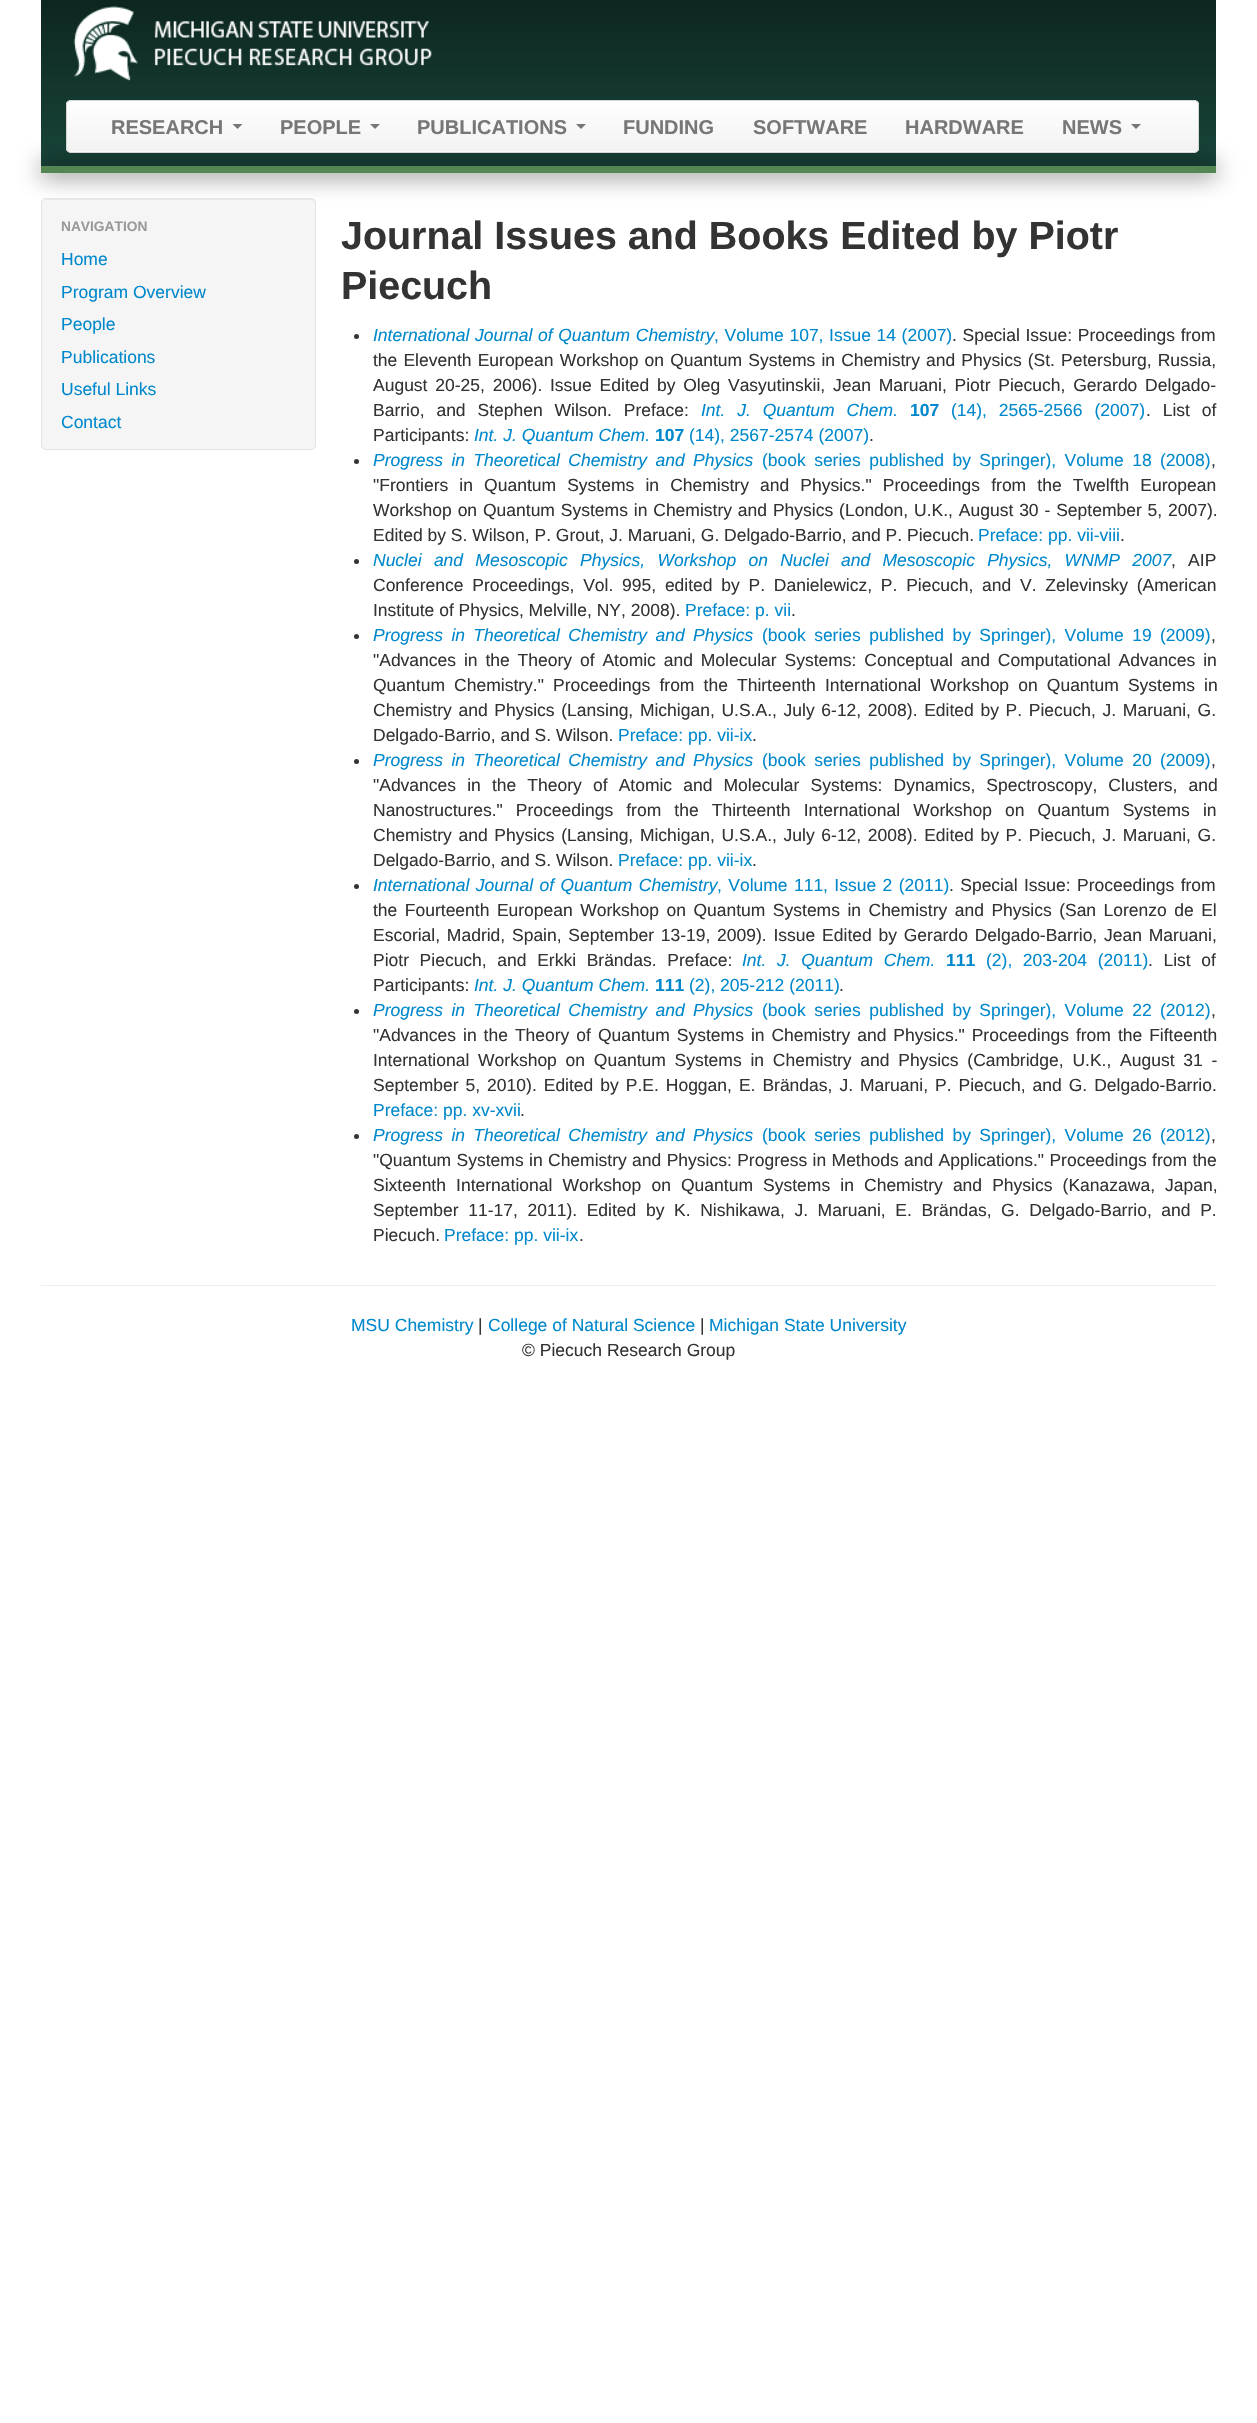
void draw(SkCanvas* canvas) {
    SkPaint paint;
    paint.setAntiAlias(true);
    auto face = [&](const char* family, int weight, float size, bool italic = false) {
        SkFontStyle style(weight, SkFontStyle::kNormal_Width,
            italic ? SkFontStyle::kItalic_Slant : SkFontStyle::kUpright_Slant);
        SkFont result(fontMgr->matchFamilyStyle(family, style), size);
        result.setSubpixel(true);
        return result;
    };
    auto write = [&](const char* s, float x, float y, const SkFont& font, SkColor color) {
        SkPaint ink(SkColor4f::FromColor(color));
        ink.setAntiAlias(true);
        canvas->drawString(s, x, y, font, ink);
    };
    auto writeSpaced = [&](const char* s, float x, float y, const SkFont& font, const SkPaint& ink, float letter, float word) {
        std::vector<SkGlyphID> glyphs(font.countText(s, strlen(s), SkTextEncoding::kUTF8));
        std::vector<float> xs(glyphs.size());
        font.textToGlyphs(s, strlen(s), SkTextEncoding::kUTF8, glyphs);
        font.getXPos(glyphs, xs, x);
        float extra = 0;
        for (size_t i = 0; i < glyphs.size(); i++) {
            xs[i] += extra;
            extra += letter + word * (glyphs[i] == font.unicharToGlyph(' '));
        }
        canvas->drawTextBlob(SkTextBlob::MakeFromPosHGlyphs(glyphs, xs, y, font), 0, 0, ink);
    };
    auto block = [&](float x, float y, float w, float h, SkColor color) {
        SkPaint ink(SkColor4f::FromColor(color));
        ink.setAntiAlias(true);
        canvas->drawRect(SkRect::MakeXYWH(x, y, w, h), ink);
    };
    auto card = [&](float x, float y, float w, float h, float radius, SkColor color) {
        SkPaint ink(SkColor4f::FromColor(color));
        ink.setAntiAlias(true);
        canvas->drawRoundRect(SkRect::MakeXYWH(x, y, w, h), radius, radius, ink);
    };
    auto paste = [&](const char* path, float x, float y, float w, float h) {
        auto image = SkImages::DeferredFromEncodedData(SkData::MakeFromFileName(path));
        canvas->drawImageRect(image, SkRect::MakeXYWH(x, y, w, h), SkSamplingOptions());
    };
    canvas->clear(SK_ColorWHITE);
    {
        const SkColor colors[] = {SkColorSetRGB(13, 38, 31), SkColorSetRGB(24, 69, 59)};
        const float stops[] = {0, 1};
        const SkPoint ends[] = {{629, 0}, {629, 169}};
        paint.setShader(SkGradientShader::MakeLinear(ends, colors, stops, 2, SkTileMode::kClamp));
        paint.setAlpha(255);
    }
    canvas->drawRect(SkRect::MakeXYWH(41, 0, 1175, 166), paint);
    paste("pic1.png", 73, 6, 359, 75);
    paint.setShader(nullptr);
    paint.setColor(SK_ColorBLACK);
    paint.setMaskFilter(SkMaskFilter::MakeBlur(kNormal_SkBlurStyle, 12.5f));
    canvas->drawRect(SkRect::MakeXYWH(41, 166, 1175, 7), paint);
    paint.setMaskFilter(nullptr);
    card(66, 100, 1133, 53, 5, SkColorSetRGB(250, 250, 250));
    canvas->save();
    canvas->clipPath(SkPathBuilder().moveTo(71, 100).lineTo(1194, 100).cubicTo(1197, 100, 1199, 102, 1199, 105).lineTo(1199, 148).cubicTo(1199, 151, 1197, 153, 1194, 153).lineTo(71, 153).cubicTo(68, 153, 66, 151, 66, 148).lineTo(66, 105).cubicTo(66, 102, 68, 100, 71, 100).close().detach(), true);
    {
        const SkColor colors[] = {SK_ColorWHITE, SkColorSetRGB(242, 242, 242)};
        const float stops[] = {0, 1};
        const SkPoint ends[] = {{633, 101}, {633, 151}};
        paint.setShader(SkGradientShader::MakeLinear(ends, colors, stops, 2, SkTileMode::kClamp));
        paint.setAlpha(255);
    }
    canvas->drawRect(SkRect::MakeXYWH(66, 101, 1133, 50), paint);
    canvas->restore();
    paint.setStyle(SkPaint::kStroke_Style);
    paint.setStrokeWidth(1);
    paint.setShader(nullptr);
    paint.setColor(SkColorSetRGB(212, 212, 212));
    canvas->drawRoundRect(SkRect::MakeXYWH(66.5f, 100.5f, 1132, 52), 4.5f, 4.5f, paint);
    auto kFont1 = face("Liberation Sans", 700, 20);
    write("RESEARCH", 111, 134, kFont1, SkColorSetRGB(119, 119, 119));
    paint.setStyle(SkPaint::kFill_Style);
    paint.setColor(SkColorSetRGB(119, 119, 119));
    canvas->drawPath(SkPathBuilder().moveTo(232.5f, 124).lineTo(242.5f, 124).lineTo(237.5f, 129).close().detach(), paint);
    write("PEOPLE", 280, 134, kFont1, SkColorSetRGB(119, 119, 119));
    canvas->drawPath(SkPathBuilder().moveTo(370, 124).lineTo(380, 124).lineTo(375, 129).close().detach(), paint);
    write("PUBLICATIONS", 417, 134, kFont1, SkColorSetRGB(119, 119, 119));
    canvas->drawPath(SkPathBuilder().moveTo(576, 124).lineTo(586, 124).lineTo(581, 129).close().detach(), paint);
    write("FUNDING", 623, 134, kFont1, SkColorSetRGB(119, 119, 119));
    write("SOFTWARE", 753, 134, kFont1, SkColorSetRGB(119, 119, 119));
    write("HARDWARE", 905, 134, kFont1, SkColorSetRGB(119, 119, 119));
    write("NEWS", 1062, 134, kFont1, SkColorSetRGB(119, 119, 119));
    canvas->drawPath(SkPathBuilder().moveTo(1131, 124).lineTo(1141, 124).lineTo(1136, 129).close().detach(), paint);
    block(41, 166, 1175, 7, SkColorSetRGB(84, 134, 84));
    card(41, 198, 275, 252, 5, SkColorSetRGB(245, 245, 245));
    paint.setColor(SkColorSetRGB(233, 233, 233));
    canvas->drawPath(SkPathBuilder().moveTo(46, 200).lineTo(311, 200).cubicTo(313, 200, 315, 202, 315, 204).lineTo(315, 203).cubicTo(315, 201, 313, 199, 311, 199).lineTo(47, 199).cubicTo(46, 199, 44, 200, 44, 201).close().detach(), paint);
    paint.setStyle(SkPaint::kStroke_Style);
    paint.setColor(SkColorSetRGB(227, 227, 227));
    canvas->drawRoundRect(SkRect::MakeXYWH(41.5f, 198.5f, 274, 251), 4.5f, 4.5f, paint);
    auto kFont2 = face("Liberation Sans", 700, 13.75f);
    write("NAVIGATION", 61, 231, kFont2, SkColorSetRGB(153, 153, 153));
    auto kFont3 = face("Liberation Sans", 400, 17.5f);
    write("Home", 61, 265, kFont3, SkColorSetRGB(0, 136, 204));
    write("Program Overview", 61, 298, kFont3, SkColorSetRGB(0, 136, 204));
    write("People", 61, 330, kFont3, SkColorSetRGB(0, 136, 204));
    write("Publications", 61, 363, kFont3, SkColorSetRGB(0, 136, 204));
    write("Useful Links", 61, 395, kFont3, SkColorSetRGB(0, 136, 204));
    write("Contact", 61, 428, kFont3, SkColorSetRGB(0, 136, 204));
    auto kFont4 = face("Liberation Sans", 700, 39.4f);
    write("Journal Issues and Books Edited by Piotr", 341, 249, kFont4, SkColorSetRGB(51, 51, 51));
    write("Piecuch", 341, 299, kFont4, SkColorSetRGB(51, 51, 51));
    paint.setStyle(SkPaint::kFill_Style);
    paint.setColor(SkColorSetRGB(51, 51, 51));
    canvas->drawCircle(356.5f, 336.5f, 2.5f, paint);
    auto kFont5 = face("Liberation Sans", 400, 17.5f, true);
    paint.setColor(SkColorSetRGB(0, 136, 204));
    writeSpaced("International Journal of Quantum Chemistry", 373, 341, kFont5, paint, 0, 0.75f);
    writeSpaced(", Volume 107, Issue 14 (2007)", 714, 341, kFont3, paint, 0, 0.75f);
    paint.setColor(SkColorSetRGB(51, 51, 51));
    writeSpaced(". Special Issue: Proceedings from", 952, 341, kFont3, paint, 0, 0.75f);
    writeSpaced("the Eleventh European Workshop on Quantum Systems in Chemistry and Physics (St. Petersburg, Russia,", 373, 366, kFont3, paint, 0, 1.25f);
    writeSpaced("August 20-25, 2006). Issue Edited by Oleg Vasyutinskii, Jean Maruani, Piotr Piecuch, Gerardo Delgado-", 373, 391, kFont3, paint, 0, 2.9f);
    writeSpaced("Barrio, and Stephen Wilson. Preface:", 373, 416, kFont3, paint, 0, 7);
    paint.setColor(SkColorSetRGB(0, 136, 204));
    writeSpaced("Int. J. Quantum Chem.", 701, 416, kFont5, paint, 0, 7);
    auto kFont6 = face("Liberation Sans", 700, 17.5f);
    write("107", 910, 416, kFont6, SkColorSetRGB(0, 136, 204));
    writeSpaced("(14), 2565-2566 (2007)", 951, 416, kFont3, paint, 0, 7);
    paint.setColor(SkColorSetRGB(51, 51, 51));
    writeSpaced(". List of", 1146, 416, kFont3, paint, 0, 7);
    write("Participants:", 373, 441, kFont3, SkColorSetRGB(51, 51, 51));
    write("Int. J. Quantum Chem.", 474, 441, kFont5, SkColorSetRGB(0, 136, 204));
    write("107", 655, 441, kFont6, SkColorSetRGB(0, 136, 204));
    write("(14), 2567-2574 (2007)", 689, 441, kFont3, SkColorSetRGB(0, 136, 204));
    write(".", 869, 441, kFont3, SkColorSetRGB(51, 51, 51));
    canvas->drawCircle(356.5f, 461.5f, 2.5f, paint);
    paint.setColor(SkColorSetRGB(0, 136, 204));
    writeSpaced("Progress in Theoretical Chemistry and Physics", 373, 466, kFont5, paint, 0, 3.5f);
    writeSpaced("(book series published by Springer), Volume 18 (2008)", 762, 466, kFont3, paint, 0, 3.5f);
    write(",", 1211, 466, kFont3, SkColorSetRGB(51, 51, 51));
    paint.setColor(SkColorSetRGB(51, 51, 51));
    writeSpaced("\"Frontiers in Quantum Systems in Chemistry and Physics.\" Proceedings from the Twelfth European", 373, 491, kFont3, paint, 0, 6.25f);
    writeSpaced("Workshop on Quantum Systems in Chemistry and Physics (London, U.K., August 30 - September 5, 2007).", 373, 516, kFont3, paint, 0, 1);
    write("Edited by S. Wilson, P. Grout, J. Maruani, G. Delgado-Barrio, and P. Piecuch.", 373, 541, kFont3, SkColorSetRGB(51, 51, 51));
    write("Preface: pp. vii-viii", 978, 541, kFont3, SkColorSetRGB(0, 136, 204));
    write(".", 1120, 541, kFont3, SkColorSetRGB(51, 51, 51));
    canvas->drawCircle(356.5f, 561.5f, 2.5f, paint);
    paint.setColor(SkColorSetRGB(0, 136, 204));
    writeSpaced("Nuclei and Mesoscopic Physics, Workshop on Nuclei and Mesoscopic Physics, WNMP 2007", 373, 566, kFont5, paint, 0, 7.4f);
    paint.setColor(SkColorSetRGB(51, 51, 51));
    writeSpaced(", AIP", 1171, 566, kFont3, paint, 0, 7.4f);
    writeSpaced("Conference Proceedings, Vol. 995, edited by P. Danielewicz, P. Piecuch, and V. Zelevinsky (American", 373, 591, kFont3, paint, 0, 3.9f);
    write("Institute of Physics, Melville, NY, 2008).", 373, 616, kFont3, SkColorSetRGB(51, 51, 51));
    write("Preface: p. vii", 685, 616, kFont3, SkColorSetRGB(0, 136, 204));
    write(".", 791, 616, kFont3, SkColorSetRGB(51, 51, 51));
    canvas->drawCircle(356.5f, 636.5f, 2.5f, paint);
    paint.setColor(SkColorSetRGB(0, 136, 204));
    writeSpaced("Progress in Theoretical Chemistry and Physics", 373, 641, kFont5, paint, 0, 3.5f);
    writeSpaced("(book series published by Springer), Volume 19 (2009)", 762, 641, kFont3, paint, 0, 3.5f);
    write(",", 1211, 641, kFont3, SkColorSetRGB(51, 51, 51));
    paint.setColor(SkColorSetRGB(51, 51, 51));
    writeSpaced("\"Advances in the Theory of Atomic and Molecular Systems: Conceptual and Computational Advances in", 373, 666, kFont3, paint, 0, 3);
    writeSpaced("Quantum Chemistry.\" Proceedings from the Thirteenth International Workshop on Quantum Systems in", 373, 691, kFont3, paint, 0, 4.25f);
    writeSpaced("Chemistry and Physics (Lansing, Michigan, U.S.A., July 6-12, 2008). Edited by P. Piecuch, J. Maruani, G.", 373, 716, kFont3, paint, 0, 1.8f);
    write("Delgado-Barrio, and S. Wilson.", 373, 741, kFont3, SkColorSetRGB(51, 51, 51));
    write("Preface: pp. vii-ix", 618, 741, kFont3, SkColorSetRGB(0, 136, 204));
    write(".", 752, 741, kFont3, SkColorSetRGB(51, 51, 51));
    canvas->drawCircle(356.5f, 761.5f, 2.5f, paint);
    paint.setColor(SkColorSetRGB(0, 136, 204));
    writeSpaced("Progress in Theoretical Chemistry and Physics", 373, 766, kFont5, paint, 0, 3.5f);
    writeSpaced("(book series published by Springer), Volume 20 (2009)", 762, 766, kFont3, paint, 0, 3.5f);
    write(",", 1211, 766, kFont3, SkColorSetRGB(51, 51, 51));
    paint.setColor(SkColorSetRGB(51, 51, 51));
    writeSpaced("\"Advances in the Theory of Atomic and Molecular Systems: Dynamics, Spectroscopy, Clusters, and", 373, 791, kFont3, paint, 0, 6.25f);
    writeSpaced("Nanostructures.\" Proceedings from the Thirteenth International Workshop on Quantum Systems in", 373, 816, kFont3, paint, 0, 8.25f);
    writeSpaced("Chemistry and Physics (Lansing, Michigan, U.S.A., July 6-12, 2008). Edited by P. Piecuch, J. Maruani, G.", 373, 841, kFont3, paint, 0, 1.8f);
    write("Delgado-Barrio, and S. Wilson.", 373, 866, kFont3, SkColorSetRGB(51, 51, 51));
    write("Preface: pp. vii-ix", 618, 866, kFont3, SkColorSetRGB(0, 136, 204));
    write(".", 752, 866, kFont3, SkColorSetRGB(51, 51, 51));
    canvas->drawCircle(356.5f, 886.5f, 2.5f, paint);
    paint.setColor(SkColorSetRGB(0, 136, 204));
    writeSpaced("International Journal of Quantum Chemistry", 373, 891, kFont5, paint, 0, 1.5f);
    writeSpaced(", Volume 111, Issue 2 (2011)", 717, 891, kFont3, paint, 0, 1.5f);
    paint.setColor(SkColorSetRGB(51, 51, 51));
    writeSpaced(". Special Issue: Proceedings from", 949, 891, kFont3, paint, 0, 1.5f);
    writeSpaced("the Fourteenth European Workshop on Quantum Systems in Chemistry and Physics (San Lorenzo de El", 373, 916, kFont3, paint, 0, 2.6f);
    writeSpaced("Escorial, Madrid, Spain, September 13-19, 2009). Issue Edited by Gerardo Delgado-Barrio, Jean Maruani,", 373, 941, kFont3, paint, 0, 1.9f);
    writeSpaced("Piotr Piecuch, and Erkki Brändas. Preface:", 373, 966, kFont3, paint, 0, 5.75f);
    paint.setColor(SkColorSetRGB(0, 136, 204));
    writeSpaced("Int. J. Quantum Chem.", 742, 966, kFont5, paint, 0, 5.75f);
    write("111", 946, 966, kFont6, SkColorSetRGB(0, 136, 204));
    writeSpaced("(2), 203-204 (2011)", 986, 966, kFont3, paint, 0, 5.75f);
    paint.setColor(SkColorSetRGB(51, 51, 51));
    writeSpaced(". List of", 1148, 966, kFont3, paint, 0, 5.75f);
    write("Participants:", 373, 991, kFont3, SkColorSetRGB(51, 51, 51));
    write("Int. J. Quantum Chem.", 474, 991, kFont5, SkColorSetRGB(0, 136, 204));
    write("111", 655, 991, kFont6, SkColorSetRGB(0, 136, 204));
    write("(2), 205-212 (2011)", 689, 991, kFont3, SkColorSetRGB(0, 136, 204));
    write(".", 839, 991, kFont3, SkColorSetRGB(51, 51, 51));
    canvas->drawCircle(356.5f, 1011.5f, 2.5f, paint);
    paint.setColor(SkColorSetRGB(0, 136, 204));
    writeSpaced("Progress in Theoretical Chemistry and Physics", 373, 1016, kFont5, paint, 0, 3.5f);
    writeSpaced("(book series published by Springer), Volume 22 (2012)", 762, 1016, kFont3, paint, 0, 3.5f);
    write(",", 1211, 1016, kFont3, SkColorSetRGB(51, 51, 51));
    paint.setColor(SkColorSetRGB(51, 51, 51));
    writeSpaced("\"Advances in the Theory of Quantum Systems in Chemistry and Physics.\" Proceedings from the Fifteenth", 373, 1041, kFont3, paint, 0, 2.1f);
    writeSpaced("International Workshop on Quantum Systems in Chemistry and Physics (Cambridge, U.K., August 31 -", 373, 1066, kFont3, paint, 0, 3.9f);
    writeSpaced("September 5, 2010). Edited by P.E. Hoggan, E. Brändas, J. Maruani, P. Piecuch, and G. Delgado-Barrio.", 373, 1091, kFont3, paint, 0, 2.1f);
    write("Preface: pp. xv-xvii", 373, 1116, kFont3, SkColorSetRGB(0, 136, 204));
    write(".", 520, 1116, kFont3, SkColorSetRGB(51, 51, 51));
    canvas->drawCircle(356.5f, 1136.5f, 2.5f, paint);
    paint.setColor(SkColorSetRGB(0, 136, 204));
    writeSpaced("Progress in Theoretical Chemistry and Physics", 373, 1141, kFont5, paint, 0, 3.5f);
    writeSpaced("(book series published by Springer), Volume 26 (2012)", 762, 1141, kFont3, paint, 0, 3.5f);
    write(",", 1211, 1141, kFont3, SkColorSetRGB(51, 51, 51));
    paint.setColor(SkColorSetRGB(51, 51, 51));
    writeSpaced("\"Quantum Systems in Chemistry and Physics: Progress in Methods and Applications.\" Proceedings from the", 373, 1166, kFont3, paint, 0, 0.5f);
    writeSpaced("Sixteenth International Workshop on Quantum Systems in Chemistry and Physics (Kanazawa, Japan,", 373, 1191, kFont3, paint, 0, 5.25f);
    writeSpaced("September 11-17, 2011). Edited by K. Nishikawa, J. Maruani, E. Brändas, G. Delgado-Barrio, and P.", 373, 1216, kFont3, paint, 0, 4.75f);
    write("Piecuch.", 373, 1241, kFont3, SkColorSetRGB(51, 51, 51));
    write("Preface: pp. vii-ix", 444, 1241, kFont3, SkColorSetRGB(0, 136, 204));
    write(".", 579, 1241, kFont3, SkColorSetRGB(51, 51, 51));
    block(41, 1285, 1175, 1, SkColorSetRGB(238, 238, 238));
    write("MSU Chemistry", 351, 1331, kFont3, SkColorSetRGB(0, 136, 204));
    write("|", 478, 1331, kFont3, SkColorSetRGB(51, 51, 51));
    write("College of Natural Science", 488, 1331, kFont3, SkColorSetRGB(0, 136, 204));
    write("|", 700, 1331, kFont3, SkColorSetRGB(51, 51, 51));
    write("Michigan State University", 709, 1331, kFont3, SkColorSetRGB(0, 136, 204));
    write("© Piecuch Research Group", 522, 1356, kFont3, SkColorSetRGB(51, 51, 51));
}
